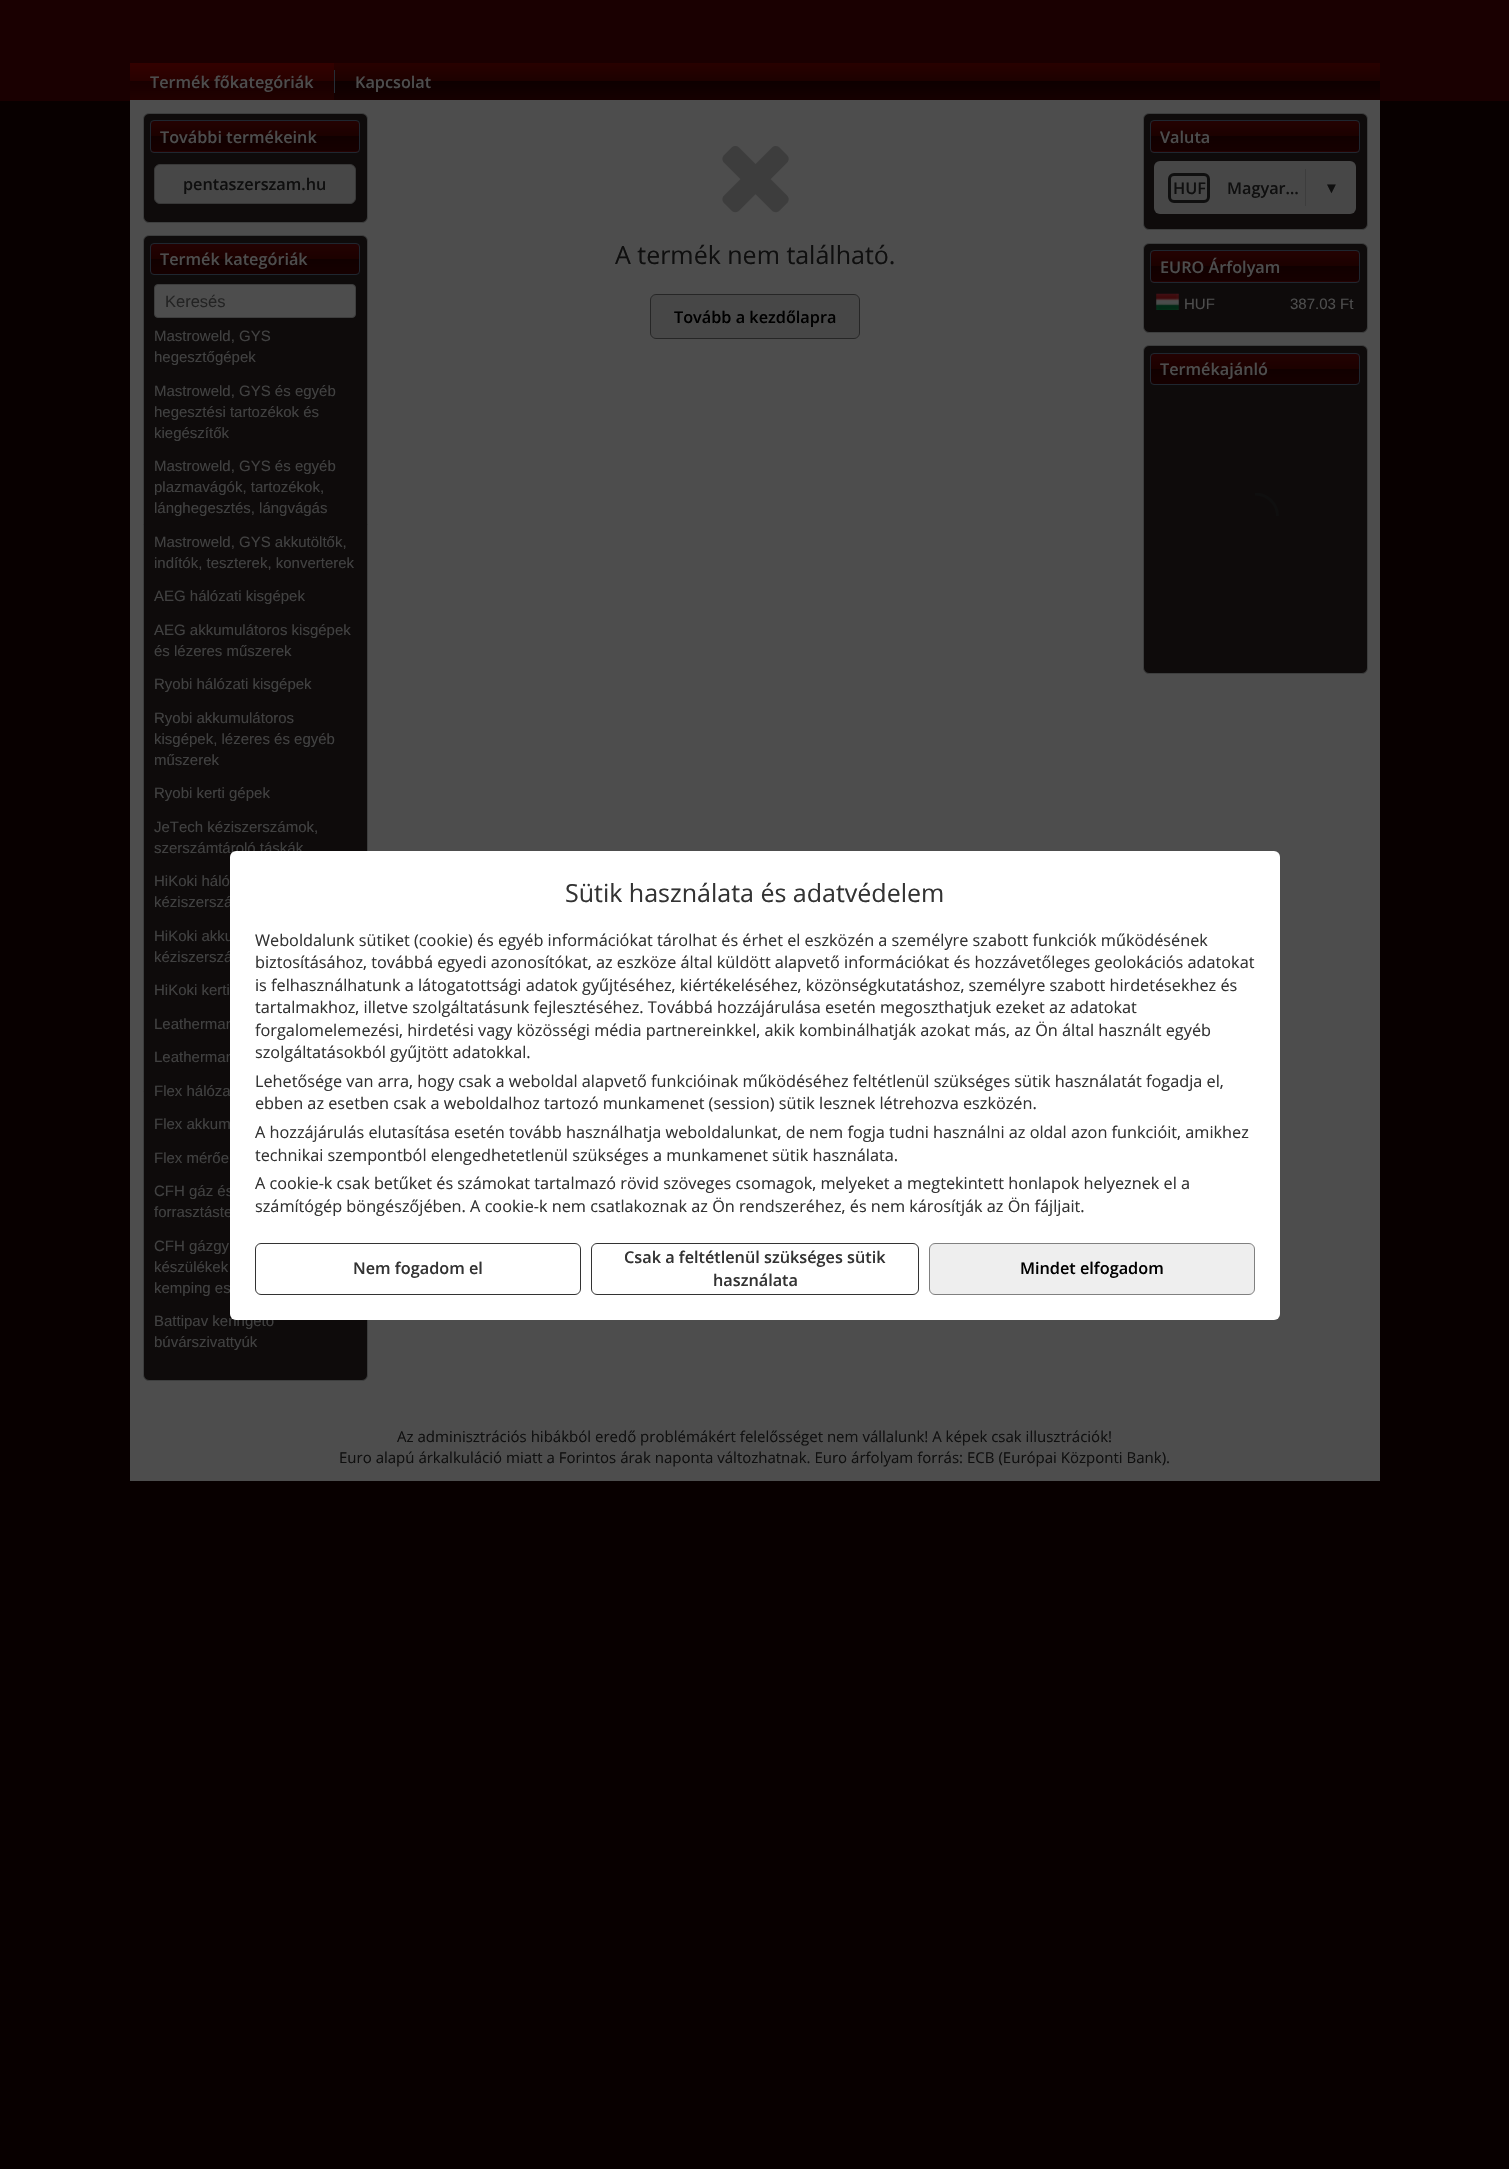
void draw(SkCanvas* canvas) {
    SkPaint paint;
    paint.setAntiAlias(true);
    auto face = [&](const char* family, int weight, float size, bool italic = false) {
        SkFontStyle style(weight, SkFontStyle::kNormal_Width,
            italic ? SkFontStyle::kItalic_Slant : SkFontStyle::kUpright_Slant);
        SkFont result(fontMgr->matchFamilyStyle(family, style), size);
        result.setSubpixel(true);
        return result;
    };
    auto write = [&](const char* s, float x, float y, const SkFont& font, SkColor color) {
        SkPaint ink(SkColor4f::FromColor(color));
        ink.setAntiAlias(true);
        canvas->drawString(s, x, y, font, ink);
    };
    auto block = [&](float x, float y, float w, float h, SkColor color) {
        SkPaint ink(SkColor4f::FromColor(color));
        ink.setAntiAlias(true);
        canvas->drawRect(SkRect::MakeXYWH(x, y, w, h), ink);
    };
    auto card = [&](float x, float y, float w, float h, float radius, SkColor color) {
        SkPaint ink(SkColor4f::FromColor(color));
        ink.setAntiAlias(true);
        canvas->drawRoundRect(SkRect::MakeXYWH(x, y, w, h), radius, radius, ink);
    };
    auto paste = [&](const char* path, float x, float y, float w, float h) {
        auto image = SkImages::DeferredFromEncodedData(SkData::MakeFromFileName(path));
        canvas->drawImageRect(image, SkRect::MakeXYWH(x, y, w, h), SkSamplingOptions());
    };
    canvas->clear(SkColorSetRGB(8, 0, 0));
    block(0, 0, 1509, 101, SkColorSetRGB(26, 0, 1));
    block(130, 100, 1250, 1381, SkColorSetRGB(77, 77, 77));
    {
        const SkColor colors[] = {SkColorSetRGB(41, 1, 0), SkColorSetRGB(29, 1, 0), SkColorSetRGB(13, 0, 0), SkColorSetRGB(22, 0, 0)};
        const float stops[] = {0, 0.49f, 0.51f, 1};
        const SkPoint ends[] = {{755, 62}, {755, 100}};
        paint.setShader(SkGradientShader::MakeLinear(ends, colors, stops, 4, SkTileMode::kClamp));
        paint.setAlpha(255);
    }
    canvas->drawRect(SkRect::MakeXYWH(334, 63, 1046, 37), paint);
    block(334, 70, 1, 23, SkColorSetRGB(38, 46, 54));
    {
        const SkColor colors[] = {SkColorSetRGB(52, 1, 0), SkColorSetRGB(40, 1, 0), SkColorSetRGB(24, 0, 0), SkColorSetRGB(33, 1, 0)};
        const float stops[] = {0, 0.49f, 0.51f, 1};
        const SkPoint ends[] = {{232, 62}, {232, 100}};
        paint.setShader(SkGradientShader::MakeLinear(ends, colors, stops, 4, SkTileMode::kClamp));
        paint.setAlpha(255);
    }
    canvas->drawRect(SkRect::MakeXYWH(130, 63, 204, 37), paint);
    auto kFont1 = face("Open Sans", 600, 16.25f);
    write("Termék főkategóriák", 150, 88, kFont1, SkColorSetRGB(77, 77, 77));
    write("Kapcsolat", 355, 88, kFont1, SkColorSetRGB(77, 77, 77));
    paint.setShader(nullptr);
    paint.setColor(SkColorSetRGB(14, 11, 11));
    canvas->drawRoundRect(SkRect::MakeXYWH(143.5f, 113.5f, 224, 109), 5.5f, 5.5f, paint);
    paint.setStyle(SkPaint::kStroke_Style);
    paint.setStrokeWidth(1);
    paint.setColor(SkColorSetRGB(61, 62, 62));
    canvas->drawRoundRect(SkRect::MakeXYWH(143.5f, 113.5f, 224, 109), 5.5f, 5.5f, paint);
    canvas->save();
    canvas->clipPath(SkPathBuilder().moveTo(154, 120).lineTo(356, 120).cubicTo(358, 120, 360, 122, 360, 124).lineTo(360, 149).cubicTo(360, 151, 358, 153, 356, 153).lineTo(154, 153).cubicTo(152, 153, 150, 151, 150, 149).lineTo(150, 124).cubicTo(150, 122, 152, 120, 154, 120).close().detach(), true);
    paint.setStyle(SkPaint::kFill_Style);
    {
        const SkColor colors[] = {SkColorSetRGB(36, 2, 2), SkColorSetRGB(28, 1, 0), SkColorSetRGB(17, 0, 0), SkColorSetRGB(22, 0, 0)};
        const float stops[] = {0, 0.49f, 0.51f, 1};
        const SkPoint ends[] = {{255, 121}, {255, 151}};
        paint.setShader(SkGradientShader::MakeLinear(ends, colors, stops, 4, SkTileMode::kClamp));
        paint.setAlpha(255);
    }
    canvas->drawRect(SkRect::MakeXYWH(150, 121, 210, 30), paint);
    {
        const SkColor colors[] = {SkColorSetRGB(36, 2, 2), SkColorSetRGB(28, 1, 0), SkColorSetRGB(17, 0, 0), SkColorSetRGB(22, 0, 0)};
        const float stops[] = {0, 0.49f, 0.51f, 1};
        const SkPoint ends[] = {{255, 151}, {255, 181}};
        paint.setShader(SkGradientShader::MakeLinear(ends, colors, stops, 4, SkTileMode::kClamp));
        paint.setAlpha(255);
    }
    canvas->drawRect(SkRect::MakeXYWH(150, 151, 210, 2), paint);
    canvas->restore();
    paint.setStyle(SkPaint::kStroke_Style);
    paint.setShader(nullptr);
    paint.setColor(SkColorSetRGB(31, 39, 48));
    canvas->drawRoundRect(SkRect::MakeXYWH(150.5f, 120.5f, 209, 32), 3.5f, 3.5f, paint);
    write("További termékeink", 160, 143, kFont1, SkColorSetRGB(77, 77, 77));
    paint.setStyle(SkPaint::kFill_Style);
    paint.setColor(SkColorSetRGB(71, 71, 71));
    canvas->drawRoundRect(SkRect::MakeXYWH(154.5f, 164.5f, 201, 39), 5.5f, 5.5f, paint);
    paint.setStyle(SkPaint::kStroke_Style);
    paint.setColor(SkColorSetRGB(56, 56, 56));
    canvas->drawRoundRect(SkRect::MakeXYWH(154.5f, 164.5f, 201, 39), 5.5f, 5.5f, paint);
    write("pentaszerszam.hu", 183, 190, kFont1, SkColorSetRGB(15, 15, 15));
    paint.setStyle(SkPaint::kFill_Style);
    paint.setColor(SkColorSetRGB(14, 11, 11));
    canvas->drawRoundRect(SkRect::MakeXYWH(143.5f, 235.5f, 224, 1145), 5.5f, 5.5f, paint);
    paint.setStyle(SkPaint::kStroke_Style);
    paint.setColor(SkColorSetRGB(61, 62, 62));
    canvas->drawRoundRect(SkRect::MakeXYWH(143.5f, 235.5f, 224, 1145), 5.5f, 5.5f, paint);
    canvas->save();
    canvas->clipPath(SkPathBuilder().moveTo(154, 243).lineTo(356, 243).cubicTo(358, 243, 360, 245, 360, 247).lineTo(360, 271).cubicTo(360, 273, 358, 275, 356, 275).lineTo(154, 275).cubicTo(152, 275, 150, 273, 150, 271).lineTo(150, 247).cubicTo(150, 245, 152, 243, 154, 243).close().detach(), true);
    paint.setStyle(SkPaint::kFill_Style);
    {
        const SkColor colors[] = {SkColorSetRGB(36, 2, 2), SkColorSetRGB(28, 1, 0), SkColorSetRGB(17, 0, 0), SkColorSetRGB(22, 0, 0)};
        const float stops[] = {0, 0.49f, 0.51f, 1};
        const SkPoint ends[] = {{255, 244}, {255, 274}};
        paint.setShader(SkGradientShader::MakeLinear(ends, colors, stops, 4, SkTileMode::kClamp));
        paint.setAlpha(255);
    }
    canvas->drawRect(SkRect::MakeXYWH(150, 244, 210, 30), paint);
    canvas->restore();
    paint.setStyle(SkPaint::kStroke_Style);
    paint.setShader(nullptr);
    paint.setColor(SkColorSetRGB(31, 39, 48));
    canvas->drawRoundRect(SkRect::MakeXYWH(150.5f, 243.5f, 209, 31), 3.5f, 3.5f, paint);
    write("Termék kategóriák", 160, 265, kFont1, SkColorSetRGB(77, 77, 77));
    paint.setStyle(SkPaint::kFill_Style);
    paint.setColor(SkColorSetRGB(77, 77, 77));
    canvas->drawRoundRect(SkRect::MakeXYWH(154.5f, 284.5f, 201, 33), 3.5f, 3.5f, paint);
    paint.setStyle(SkPaint::kStroke_Style);
    paint.setColor(SkColorSetRGB(61, 61, 61));
    canvas->drawRoundRect(SkRect::MakeXYWH(154.5f, 284.5f, 201, 33), 3.5f, 3.5f, paint);
    auto kFont2 = face("Liberation Sans", 400, 16.5f);
    write("Keresés", 165, 307, kFont2, SkColorSetRGB(35, 35, 35));
    auto kFont3 = face("Liberation Sans", 400, 15);
    write("Mastroweld, GYS", 154, 341, kFont3, SkColorSetRGB(65, 65, 65));
    write("hegesztőgépek", 154, 362, kFont3, SkColorSetRGB(65, 65, 65));
    write("Mastroweld, GYS és egyéb", 154, 396, kFont3, SkColorSetRGB(65, 65, 65));
    write("hegesztési tartozékok és", 154, 417, kFont3, SkColorSetRGB(65, 65, 65));
    write("kiegészítők", 154, 438, kFont3, SkColorSetRGB(65, 65, 65));
    write("Mastroweld, GYS és egyéb", 154, 471, kFont3, SkColorSetRGB(65, 65, 65));
    write("plazmavágók, tartozékok,", 154, 492, kFont3, SkColorSetRGB(65, 65, 65));
    write("lánghegesztés, lángvágás", 154, 513, kFont3, SkColorSetRGB(65, 65, 65));
    write("Mastroweld, GYS akkutöltők,", 154, 547, kFont3, SkColorSetRGB(65, 65, 65));
    write("indítók, teszterek, konverterek", 154, 568, kFont3, SkColorSetRGB(65, 65, 65));
    write("AEG hálózati kisgépek", 154, 601, kFont3, SkColorSetRGB(65, 65, 65));
    write("AEG akkumulátoros kisgépek", 154, 635, kFont3, SkColorSetRGB(65, 65, 65));
    write("és lézeres műszerek", 154, 656, kFont3, SkColorSetRGB(65, 65, 65));
    write("Ryobi hálózati kisgépek", 154, 689, kFont3, SkColorSetRGB(65, 65, 65));
    write("Ryobi akkumulátoros", 154, 723, kFont3, SkColorSetRGB(65, 65, 65));
    write("kisgépek, lézeres és egyéb", 154, 744, kFont3, SkColorSetRGB(65, 65, 65));
    write("műszerek", 154, 765, kFont3, SkColorSetRGB(65, 65, 65));
    write("Ryobi kerti gépek", 154, 798, kFont3, SkColorSetRGB(65, 65, 65));
    write("JeTech kéziszerszámok,", 154, 832, kFont3, SkColorSetRGB(65, 65, 65));
    write("szerszámtároló táskák", 154, 853, kFont3, SkColorSetRGB(65, 65, 65));
    write("HiKoki háló", 154, 886, kFont3, SkColorSetRGB(65, 65, 65));
    write("kéziszerszá", 154, 907, kFont3, SkColorSetRGB(65, 65, 65));
    write("HiKoki akku", 154, 941, kFont3, SkColorSetRGB(65, 65, 65));
    write("kéziszerszá", 154, 962, kFont3, SkColorSetRGB(65, 65, 65));
    write("HiKoki kerti", 154, 995, kFont3, SkColorSetRGB(65, 65, 65));
    write("Leatherman", 154, 1029, kFont3, SkColorSetRGB(65, 65, 65));
    write("Leatherman", 154, 1062, kFont3, SkColorSetRGB(65, 65, 65));
    write("Flex hálóza", 154, 1096, kFont3, SkColorSetRGB(65, 65, 65));
    write("Flex akkum", 154, 1129, kFont3, SkColorSetRGB(65, 65, 65));
    write("Flex mérőe", 154, 1163, kFont3, SkColorSetRGB(65, 65, 65));
    write("CFH gáz és", 154, 1196, kFont3, SkColorSetRGB(65, 65, 65));
    write("forrasztáste", 154, 1217, kFont3, SkColorSetRGB(65, 65, 65));
    write("CFH gázgy", 154, 1251, kFont3, SkColorSetRGB(65, 65, 65));
    write("készülékek", 154, 1272, kFont3, SkColorSetRGB(65, 65, 65));
    write("kemping es", 154, 1293, kFont3, SkColorSetRGB(65, 65, 65));
    write("Battipav keringető", 154, 1326, kFont3, SkColorSetRGB(65, 65, 65));
    write("búvárszivattyúk", 154, 1347, kFont3, SkColorSetRGB(65, 65, 65));
    paste("pic1.png", 722, 146, 67, 67);
    auto kFont4 = face("Open Sans", 400, 25);
    write("A termék nem található.", 615, 264, kFont4, SkColorSetRGB(15, 15, 15));
    paint.setStyle(SkPaint::kFill_Style);
    paint.setColor(SkColorSetRGB(71, 71, 71));
    canvas->drawRoundRect(SkRect::MakeXYWH(650.5f, 294.5f, 209, 44), 5.5f, 5.5f, paint);
    paint.setStyle(SkPaint::kStroke_Style);
    paint.setColor(SkColorSetRGB(38, 38, 38));
    canvas->drawRoundRect(SkRect::MakeXYWH(650.5f, 294.5f, 209, 44), 5.5f, 5.5f, paint);
    write("Tovább a kezdőlapra", 674, 323, kFont1, SK_ColorBLACK);
    paint.setStyle(SkPaint::kFill_Style);
    paint.setColor(SkColorSetRGB(14, 11, 11));
    canvas->drawRoundRect(SkRect::MakeXYWH(1143.5f, 113.5f, 224, 116), 5.5f, 5.5f, paint);
    paint.setStyle(SkPaint::kStroke_Style);
    paint.setColor(SkColorSetRGB(61, 62, 62));
    canvas->drawRoundRect(SkRect::MakeXYWH(1143.5f, 113.5f, 224, 116), 5.5f, 5.5f, paint);
    canvas->save();
    canvas->clipPath(SkPathBuilder().moveTo(1154, 120).lineTo(1356, 120).cubicTo(1358, 120, 1360, 122, 1360, 124).lineTo(1360, 149).cubicTo(1360, 151, 1358, 153, 1356, 153).lineTo(1154, 153).cubicTo(1152, 153, 1150, 151, 1150, 149).lineTo(1150, 124).cubicTo(1150, 122, 1152, 120, 1154, 120).close().detach(), true);
    paint.setStyle(SkPaint::kFill_Style);
    {
        const SkColor colors[] = {SkColorSetRGB(36, 2, 2), SkColorSetRGB(28, 1, 0), SkColorSetRGB(17, 0, 0), SkColorSetRGB(22, 0, 0)};
        const float stops[] = {0, 0.49f, 0.51f, 1};
        const SkPoint ends[] = {{1255, 121}, {1255, 151}};
        paint.setShader(SkGradientShader::MakeLinear(ends, colors, stops, 4, SkTileMode::kClamp));
        paint.setAlpha(255);
    }
    canvas->drawRect(SkRect::MakeXYWH(1150, 121, 210, 30), paint);
    {
        const SkColor colors[] = {SkColorSetRGB(36, 2, 2), SkColorSetRGB(28, 1, 0), SkColorSetRGB(17, 0, 0), SkColorSetRGB(22, 0, 0)};
        const float stops[] = {0, 0.49f, 0.51f, 1};
        const SkPoint ends[] = {{1255, 151}, {1255, 181}};
        paint.setShader(SkGradientShader::MakeLinear(ends, colors, stops, 4, SkTileMode::kClamp));
        paint.setAlpha(255);
    }
    canvas->drawRect(SkRect::MakeXYWH(1150, 151, 210, 2), paint);
    canvas->restore();
    paint.setStyle(SkPaint::kStroke_Style);
    paint.setShader(nullptr);
    paint.setColor(SkColorSetRGB(31, 39, 48));
    canvas->drawRoundRect(SkRect::MakeXYWH(1150.5f, 120.5f, 209, 32), 3.5f, 3.5f, paint);
    write("Valuta", 1160, 143, kFont1, SkColorSetRGB(77, 77, 77));
    card(1154, 161, 202, 53, 6, SkColorSetRGB(71, 71, 71));
    paint.setStrokeWidth(3);
    paint.setColor(SkColorSetRGB(15, 15, 15));
    canvas->drawRoundRect(SkRect::MakeXYWH(1169.5f, 174.5f, 39, 27), 4.5f, 4.5f, paint);
    write("HUF", 1173, 194, kFont1, SkColorSetRGB(15, 15, 15));
    write("Magyar…", 1227, 194, kFont1, SkColorSetRGB(15, 15, 15));
    block(1305, 169, 1, 37, SkColorSetRGB(61, 61, 61));
    auto kFont5 = face("Liberation Serif", 400, 15);
    write("▼", 1324, 193, kFont5, SkColorSetRGB(15, 15, 15));
    paint.setStyle(SkPaint::kFill_Style);
    paint.setColor(SkColorSetRGB(14, 11, 11));
    canvas->drawRoundRect(SkRect::MakeXYWH(1143.5f, 243.5f, 224, 89), 5.5f, 5.5f, paint);
    paint.setStyle(SkPaint::kStroke_Style);
    paint.setStrokeWidth(1);
    paint.setColor(SkColorSetRGB(61, 62, 62));
    canvas->drawRoundRect(SkRect::MakeXYWH(1143.5f, 243.5f, 224, 89), 5.5f, 5.5f, paint);
    canvas->save();
    canvas->clipPath(SkPathBuilder().moveTo(1154, 250).lineTo(1356, 250).cubicTo(1358, 250, 1360, 252, 1360, 254).lineTo(1360, 279).cubicTo(1360, 281, 1358, 283, 1356, 283).lineTo(1154, 283).cubicTo(1152, 283, 1150, 281, 1150, 279).lineTo(1150, 254).cubicTo(1150, 252, 1152, 250, 1154, 250).close().detach(), true);
    paint.setStyle(SkPaint::kFill_Style);
    {
        const SkColor colors[] = {SkColorSetRGB(36, 2, 2), SkColorSetRGB(28, 1, 0), SkColorSetRGB(17, 0, 0), SkColorSetRGB(22, 0, 0)};
        const float stops[] = {0, 0.49f, 0.51f, 1};
        const SkPoint ends[] = {{1255, 251}, {1255, 281}};
        paint.setShader(SkGradientShader::MakeLinear(ends, colors, stops, 4, SkTileMode::kClamp));
        paint.setAlpha(255);
    }
    canvas->drawRect(SkRect::MakeXYWH(1150, 251, 210, 30), paint);
    {
        const SkColor colors[] = {SkColorSetRGB(36, 2, 2), SkColorSetRGB(28, 1, 0), SkColorSetRGB(17, 0, 0), SkColorSetRGB(22, 0, 0)};
        const float stops[] = {0, 0.49f, 0.51f, 1};
        const SkPoint ends[] = {{1255, 281}, {1255, 311}};
        paint.setShader(SkGradientShader::MakeLinear(ends, colors, stops, 4, SkTileMode::kClamp));
        paint.setAlpha(255);
    }
    canvas->drawRect(SkRect::MakeXYWH(1150, 281, 210, 2), paint);
    canvas->restore();
    paint.setStyle(SkPaint::kStroke_Style);
    paint.setShader(nullptr);
    paint.setColor(SkColorSetRGB(31, 39, 48));
    canvas->drawRoundRect(SkRect::MakeXYWH(1150.5f, 250.5f, 209, 32), 3.5f, 3.5f, paint);
    write("EURO Árfolyam", 1160, 273, kFont1, SkColorSetRGB(77, 77, 77));
    paste("pic2.png", 1156, 293, 23, 17);
    write("HUF", 1184, 309, kFont3, SkColorSetRGB(77, 77, 77));
    write("387.03 Ft", 1290, 309, kFont3, SkColorSetRGB(77, 77, 77));
    paint.setStyle(SkPaint::kFill_Style);
    paint.setColor(SkColorSetRGB(14, 11, 11));
    canvas->drawRoundRect(SkRect::MakeXYWH(1143.5f, 345.5f, 224, 328), 5.5f, 5.5f, paint);
    paint.setStyle(SkPaint::kStroke_Style);
    paint.setColor(SkColorSetRGB(61, 62, 62));
    canvas->drawRoundRect(SkRect::MakeXYWH(1143.5f, 345.5f, 224, 328), 5.5f, 5.5f, paint);
    canvas->save();
    canvas->clipPath(SkPathBuilder().moveTo(1154, 353).lineTo(1356, 353).cubicTo(1358, 353, 1360, 355, 1360, 357).lineTo(1360, 381).cubicTo(1360, 383, 1358, 385, 1356, 385).lineTo(1154, 385).cubicTo(1152, 385, 1150, 383, 1150, 381).lineTo(1150, 357).cubicTo(1150, 355, 1152, 353, 1154, 353).close().detach(), true);
    paint.setStyle(SkPaint::kFill_Style);
    {
        const SkColor colors[] = {SkColorSetRGB(36, 2, 2), SkColorSetRGB(28, 1, 0), SkColorSetRGB(17, 0, 0), SkColorSetRGB(22, 0, 0)};
        const float stops[] = {0, 0.49f, 0.51f, 1};
        const SkPoint ends[] = {{1255, 354}, {1255, 384}};
        paint.setShader(SkGradientShader::MakeLinear(ends, colors, stops, 4, SkTileMode::kClamp));
        paint.setAlpha(255);
    }
    canvas->drawRect(SkRect::MakeXYWH(1150, 354, 210, 30), paint);
    canvas->restore();
    paint.setStyle(SkPaint::kStroke_Style);
    paint.setShader(nullptr);
    paint.setColor(SkColorSetRGB(31, 39, 48));
    canvas->drawRoundRect(SkRect::MakeXYWH(1150.5f, 353.5f, 209, 31), 3.5f, 3.5f, paint);
    write("Termékajánló", 1160, 375, kFont1, SkColorSetRGB(77, 77, 77));
    canvas->save();
    canvas->clipRect(SkRect::MakeXYWH(1231, 493, 48, 47));
    paint.setStrokeWidth(2.5f);
    paint.setColor(SkColorSetRGB(15, 15, 15));
    canvas->drawPath(SkPathBuilder().moveTo(1277.5f, 516).cubicTo(1277.5f, 504, 1267.5f, 494, 1255, 494).detach(), paint);
    canvas->restore();
    auto kFont6 = face("Open Sans", 400, 15);
    write("Az adminisztrációs hibákból eredő problémákért felelősséget nem vállalunk! A képek csak illusztrációk!", 397, 1442, kFont6, SkColorSetRGB(15, 15, 15));
    write("Euro alapú árkalkuláció miatt a Forintos árak naponta változhatnak. Euro árfolyam forrás: ECB (Európai Központi Bank).", 339, 1463, kFont6, SkColorSetRGB(15, 15, 15));
    card(230, 851, 1050, 469, 6, SK_ColorWHITE);
    write("Sütik használata és adatvédelem", 565, 902, kFont4, SkColorSetRGB(51, 51, 51));
    auto kFont7 = face("Open Sans", 400, 16.25f);
    write("Weboldalunk sütiket (cookie) és egyéb információkat tárolhat és érhet el eszközén a személyre szabott funkciók működésének", 255, 946, kFont7, SkColorSetRGB(51, 51, 51));
    write("biztosításához, továbbá egyedi azonosítókat, az eszköze által küldött alapvető információkat és hozzávetőleges geolokációs adatokat", 255, 968, kFont7, SkColorSetRGB(51, 51, 51));
    write("is felhasználhatunk a látogatottsági adatok gyűjtéséhez, kiértékeléséhez, közönségkutatáshoz, személyre szabott hirdetésekhez és", 255, 991, kFont7, SkColorSetRGB(51, 51, 51));
    write("tartalmakhoz, illetve szolgáltatásunk fejlesztéséhez. Továbbá hozzájárulása esetén megoszthatjuk ezeket az adatokat", 255, 1013, kFont7, SkColorSetRGB(51, 51, 51));
    write("forgalomelemezési, hirdetési vagy közösségi média partnereinkkel, akik kombinálhatják azokat más, az Ön által használt egyéb", 255, 1036, kFont7, SkColorSetRGB(51, 51, 51));
    write("szolgáltatásokból gyűjtött adatokkal.", 255, 1058, kFont7, SkColorSetRGB(51, 51, 51));
    write("Lehetősége van arra, hogy csak a weboldal alapvető funkcióinak működéséhez feltétlenül szükséges sütik használatát fogadja el,", 255, 1087, kFont7, SkColorSetRGB(51, 51, 51));
    write("ebben az esetben csak a weboldalhoz tartozó munkamenet (session) sütik lesznek létrehozva eszközén.", 255, 1109, kFont7, SkColorSetRGB(51, 51, 51));
    write("A hozzájárulás elutasítása esetén tovább használhatja weboldalunkat, de nem fogja tudni használni az oldal azon funkcióit, amikhez", 255, 1138, kFont7, SkColorSetRGB(51, 51, 51));
    write("technikai szempontból elengedhetetlenül szükséges a munkamenet sütik használata.", 255, 1161, kFont7, SkColorSetRGB(51, 51, 51));
    write("A cookie-k csak betűket és számokat tartalmazó rövid szöveges csomagok, melyeket a megtekintett honlapok helyeznek el a", 255, 1189, kFont7, SkColorSetRGB(51, 51, 51));
    write("számítógép böngészőjében. A cookie-k nem csatlakoznak az Ön rendszeréhez, és nem károsítják az Ön fájljait.", 255, 1212, kFont7, SkColorSetRGB(51, 51, 51));
    paint.setStrokeWidth(1);
    paint.setColor(SkColorSetRGB(51, 51, 51));
    canvas->drawRoundRect(SkRect::MakeXYWH(255.5f, 1243.5f, 325, 51), 5.5f, 5.5f, paint);
    write("Nem fogadom el", 353, 1274, kFont1, SkColorSetRGB(51, 51, 51));
    canvas->drawRoundRect(SkRect::MakeXYWH(591.5f, 1243.5f, 327, 51), 5.5f, 5.5f, paint);
    write("Csak a feltétlenül szükséges sütik", 624, 1263, kFont1, SkColorSetRGB(51, 51, 51));
    write("használata", 713, 1286, kFont1, SkColorSetRGB(51, 51, 51));
    paint.setStyle(SkPaint::kFill_Style);
    paint.setColor(SkColorSetRGB(238, 238, 238));
    canvas->drawRoundRect(SkRect::MakeXYWH(929.5f, 1243.5f, 325, 51), 5.5f, 5.5f, paint);
    paint.setStyle(SkPaint::kStroke_Style);
    paint.setColor(SkColorSetRGB(128, 128, 128));
    canvas->drawRoundRect(SkRect::MakeXYWH(929.5f, 1243.5f, 325, 51), 5.5f, 5.5f, paint);
    write("Mindet elfogadom", 1020, 1274, kFont1, SK_ColorBLACK);
}
